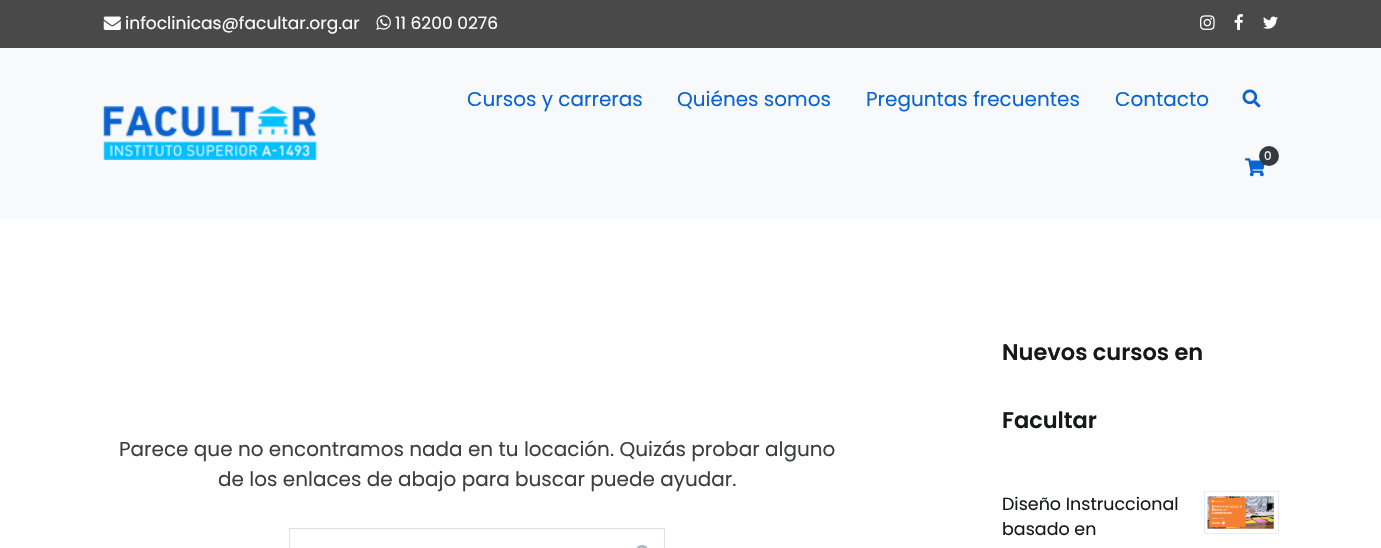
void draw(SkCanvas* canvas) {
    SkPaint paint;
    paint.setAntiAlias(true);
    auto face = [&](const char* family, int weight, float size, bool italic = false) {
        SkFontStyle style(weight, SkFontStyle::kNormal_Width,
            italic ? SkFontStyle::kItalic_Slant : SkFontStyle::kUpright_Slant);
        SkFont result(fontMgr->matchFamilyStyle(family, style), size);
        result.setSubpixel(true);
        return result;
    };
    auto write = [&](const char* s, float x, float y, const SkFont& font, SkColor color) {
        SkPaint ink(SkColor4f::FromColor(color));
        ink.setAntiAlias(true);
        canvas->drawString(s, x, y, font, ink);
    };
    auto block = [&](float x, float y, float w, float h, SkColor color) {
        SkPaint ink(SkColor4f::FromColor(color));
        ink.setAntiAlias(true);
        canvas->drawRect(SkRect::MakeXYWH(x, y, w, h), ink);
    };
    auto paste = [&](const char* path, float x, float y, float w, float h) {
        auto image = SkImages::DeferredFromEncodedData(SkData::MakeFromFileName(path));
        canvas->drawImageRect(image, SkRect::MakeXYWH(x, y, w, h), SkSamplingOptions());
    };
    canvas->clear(SK_ColorWHITE);
    block(0, 48, 1381, 171, SkColorSetRGB(248, 249, 250));
    block(0, 0, 1381, 48, SkColorSetRGB(73, 73, 73));
    paste("pic1.png", 103, 16, 18, 14);
    auto kFont1 = face("Poppins", 400, 17.1f);
    write("infoclinicas@facultar.org.ar", 125, 29, kFont1, SK_ColorWHITE);
    paste("pic2.png", 376, 15, 15, 15);
    write("11 6200 0276", 395, 29, kFont1, SK_ColorWHITE);
    paste("pic3.png", 1200, 15, 15, 15);
    paste("pic4.png", 1234, 14, 9, 16);
    paste("pic5.png", 1263, 16, 15, 13);
    paste("pic6.png", 103, 106, 214, 54);
    auto kFont2 = face("Poppins", 400, 20);
    write("Cursos y carreras", 467, 106, kFont2, SkColorSetRGB(10, 99, 208));
    write("Quiénes somos", 677, 106, kFont2, SkColorSetRGB(10, 99, 208));
    write("Preguntas frecuentes", 866, 106, kFont2, SkColorSetRGB(10, 99, 208));
    write("Contacto", 1115, 106, kFont2, SkColorSetRGB(10, 99, 208));
    paste("pic7.png", 1242, 89, 19, 19);
    paste("pic8.png", 1245, 158, 20, 19);
    paint.setColor(SkColorSetRGB(52, 58, 64));
    canvas->drawCircle(1269, 156, 10, paint);
    auto kFont3 = face("Poppins", 400, 12);
    write("0", 1264, 160, kFont3, SK_ColorWHITE);
    write("Parece que no encontramos nada en tu locación. Quizás probar alguno", 119, 456, kFont2, SkColorSetRGB(60, 63, 66));
    write("de los enlaces de abajo para buscar puede ayudar.", 218, 486, kFont2, SkColorSetRGB(60, 63, 66));
    paint.setStyle(SkPaint::kStroke_Style);
    paint.setStrokeWidth(1);
    paint.setColor(SkColorSetRGB(222, 226, 230));
    canvas->drawRect(SkRect::MakeXYWH(289.5f, 528.5f, 375, 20), paint);
    paste("pic9.png", 636, 545, 12, 3);
    auto kFont4 = face("Poppins", 600, 22.5f);
    write("Nuevos cursos en", 1002, 360, kFont4, SkColorSetRGB(22, 24, 26));
    write("Facultar", 1002, 428, kFont4, SkColorSetRGB(22, 24, 26));
    auto kFont5 = face("Poppins", 400, 17.5f);
    write("Diseño Instruccional", 1002, 510, kFont5, SkColorSetRGB(22, 24, 26));
    paint.setColor(SkColorSetRGB(233, 236, 239));
    canvas->drawRect(SkRect::MakeXYWH(1204.5f, 491.5f, 74, 42), paint);
    paste("pic10.png", 1207, 496, 67, 33);
    write("basado en", 1002, 535, kFont5, SkColorSetRGB(22, 24, 26));
}
